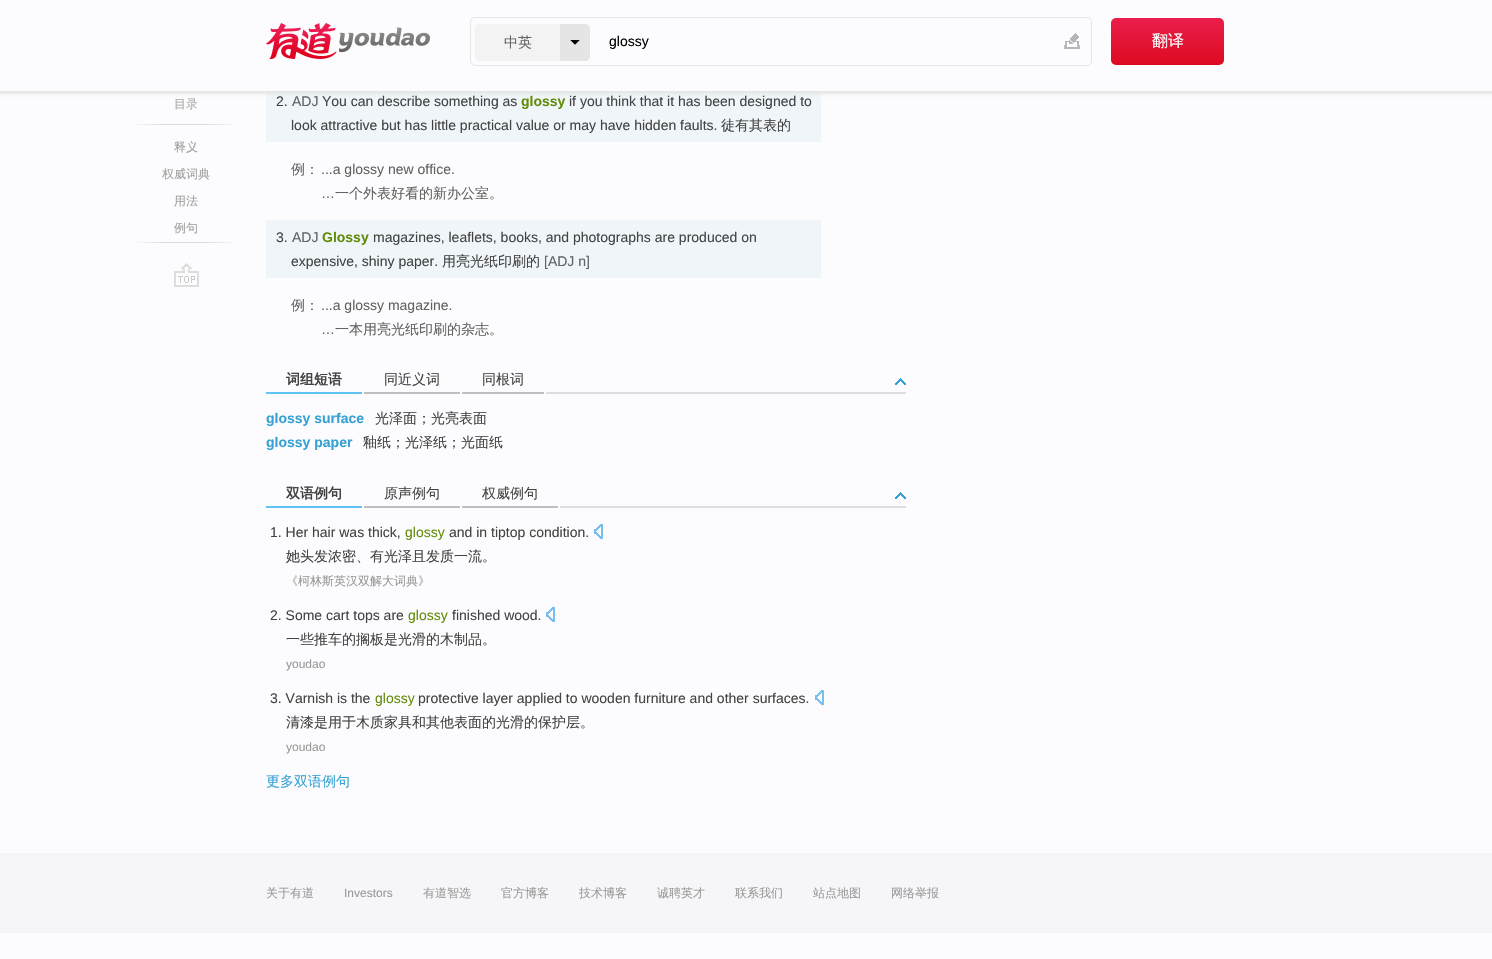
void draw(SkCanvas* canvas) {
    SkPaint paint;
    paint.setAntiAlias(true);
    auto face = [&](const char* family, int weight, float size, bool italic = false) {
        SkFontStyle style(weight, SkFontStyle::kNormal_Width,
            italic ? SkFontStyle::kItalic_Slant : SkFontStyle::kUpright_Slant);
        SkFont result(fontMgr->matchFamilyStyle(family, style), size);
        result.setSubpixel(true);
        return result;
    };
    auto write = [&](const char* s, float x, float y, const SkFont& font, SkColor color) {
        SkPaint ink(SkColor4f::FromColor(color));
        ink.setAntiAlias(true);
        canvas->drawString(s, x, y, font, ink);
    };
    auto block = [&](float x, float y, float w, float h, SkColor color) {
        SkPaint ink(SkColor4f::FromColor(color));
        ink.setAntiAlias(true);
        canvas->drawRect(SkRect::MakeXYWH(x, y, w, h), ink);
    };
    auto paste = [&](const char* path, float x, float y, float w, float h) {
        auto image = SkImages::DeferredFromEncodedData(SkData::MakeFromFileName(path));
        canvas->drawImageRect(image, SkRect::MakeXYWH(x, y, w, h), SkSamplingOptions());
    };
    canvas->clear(SkColorSetRGB(252, 252, 254));
    block(266, 91, 555, 51, SkColorSetRGB(239, 245, 248));
    paint.setColor(SkColorSetRGB(230, 230, 230));
    paint.setMaskFilter(SkMaskFilter::MakeBlur(kNormal_SkBlurStyle, 1.5f));
    canvas->drawRect(SkRect::MakeXYWH(-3, -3, 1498, 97), paint);
    paint.setMaskFilter(nullptr);
    block(0, 0, 1492, 91, SkColorSetRGB(252, 252, 254));
    paste("pic1.png", 266, 23, 164, 36);
    paint.setStyle(SkPaint::kStroke_Style);
    paint.setStrokeWidth(1);
    canvas->drawRoundRect(SkRect::MakeXYWH(470.5f, 17.5f, 621, 48), 4.5f, 4.5f, paint);
    paint.setStyle(SkPaint::kFill_Style);
    paint.setColor(SkColorSetRGB(243, 243, 243));
    canvas->drawPath(SkPathBuilder().moveTo(480, 24).lineTo(560, 24).lineTo(560, 61).lineTo(480, 61).cubicTo(477, 61, 475, 59, 475, 56).lineTo(475, 29).cubicTo(475, 26, 477, 24, 480, 24).close().detach(), paint);
    auto kFont1 = face("WenQuanYi Zen Hei", 500, 14);
    write("中英", 504, 47, kFont1, SkColorSetRGB(98, 98, 98));
    paint.setColor(SkColorSetRGB(229, 229, 229));
    canvas->drawPath(SkPathBuilder().moveTo(560, 24).lineTo(585, 24).cubicTo(588, 24, 590, 26, 590, 29).lineTo(590, 56).cubicTo(590, 59, 588, 61, 585, 61).lineTo(560, 61).close().detach(), paint);
    paint.setColor(SK_ColorBLACK);
    canvas->drawPath(SkPathBuilder().moveTo(570, 40).lineTo(580, 40).lineTo(575, 45).close().detach(), paint);
    paint.setColor(SkColorSetRGB(229, 229, 229));
    canvas->drawPath(SkPathBuilder().moveTo(580, 40).lineTo(580, 50).lineTo(575, 45).close().moveTo(570, 50).lineTo(570, 40).lineTo(575, 45).close().detach(), paint);
    auto kFont2 = face("Liberation Sans", 400, 14);
    write("glossy", 609, 46, kFont2, SK_ColorBLACK);
    paste("pic2.png", 1064, 33, 16, 16);
    {
        const SkColor colors[] = {SkColorSetRGB(234, 30, 76), SkColorSetRGB(221, 10, 32)};
        const float stops[] = {0, 1};
        const SkPoint ends[] = {{1168, 18}, {1168, 65}};
        paint.setShader(SkGradientShader::MakeLinear(ends, colors, stops, 2, SkTileMode::kClamp));
        paint.setAlpha(255);
    }
    canvas->drawRoundRect(SkRect::MakeXYWH(1111, 18, 113, 47), 5, 5, paint);
    auto kFont3 = face("WenQuanYi Zen Hei", 500, 16);
    write("翻译", 1152, 46, kFont3, SK_ColorWHITE);
    auto kFont4 = face("WenQuanYi Zen Hei", 500, 12);
    write("目录", 174, 108, kFont4, SkColorSetRGB(170, 170, 170));
    paste("pic3.png", 135, 124, 101, 1);
    write("释义", 174, 151, kFont4, SkColorSetRGB(160, 160, 160));
    write("权威词典", 162, 178, kFont4, SkColorSetRGB(160, 160, 160));
    write("用法", 174, 205, kFont4, SkColorSetRGB(160, 160, 160));
    write("例句", 174, 232, kFont4, SkColorSetRGB(160, 160, 160));
    paste("pic3.png", 135, 242, 101, 1);
    paste("pic4.png", 174, 263, 25, 24);
    write("2.", 276, 106, kFont2, SkColorSetRGB(67, 67, 67));
    write("ADJ", 292, 106, kFont2, SkColorSetRGB(98, 98, 98));
    write("You can describe something as", 322, 106, kFont2, SkColorSetRGB(67, 67, 67));
    auto kFont5 = face("Liberation Sans", 700, 14);
    write("glossy", 521, 106, kFont5, SkColorSetRGB(99, 140, 11));
    write("if you think that it has been designed to", 569, 106, kFont2, SkColorSetRGB(67, 67, 67));
    write("look attractive but has little practical value or may have hidden faults.", 291, 130, kFont2, SkColorSetRGB(67, 67, 67));
    write("徒有其表的", 721, 130, kFont1, SkColorSetRGB(67, 67, 67));
    write("例：", 291, 174, kFont1, SkColorSetRGB(98, 98, 98));
    write("...a glossy new office.", 321, 174, kFont2, SkColorSetRGB(98, 98, 98));
    write("…", 321, 198, kFont2, SkColorSetRGB(98, 98, 98));
    write("一个外表好看的新办公室。", 335, 198, kFont1, SkColorSetRGB(98, 98, 98));
    block(266, 220, 555, 58, SkColorSetRGB(239, 245, 248));
    write("3.", 276, 242, kFont2, SkColorSetRGB(67, 67, 67));
    write("ADJ", 292, 242, kFont2, SkColorSetRGB(98, 98, 98));
    write("Glossy", 322, 242, kFont5, SkColorSetRGB(99, 140, 11));
    write("magazines, leaflets, books, and photographs are produced on", 373, 242, kFont2, SkColorSetRGB(67, 67, 67));
    write("expensive, shiny paper.", 291, 266, kFont2, SkColorSetRGB(67, 67, 67));
    write("用亮光纸印刷的", 442, 266, kFont1, SkColorSetRGB(67, 67, 67));
    write("[ADJ n]", 544, 266, kFont2, SkColorSetRGB(98, 98, 98));
    write("例：", 291, 310, kFont1, SkColorSetRGB(98, 98, 98));
    write("...a glossy magazine.", 321, 310, kFont2, SkColorSetRGB(98, 98, 98));
    write("…", 321, 334, kFont2, SkColorSetRGB(98, 98, 98));
    write("一本用亮光纸印刷的杂志。", 335, 334, kFont1, SkColorSetRGB(98, 98, 98));
    block(546, 392, 360, 2, SkColorSetRGB(221, 221, 221));
    block(362, 392, 2, 2, SK_ColorWHITE);
    block(266, 392, 96, 2, SkColorSetRGB(95, 196, 243));
    auto kFont6 = face("WenQuanYi Zen Hei", 700, 14);
    write("词组短语", 286, 384, kFont6, SkColorSetRGB(67, 67, 67));
    block(460, 392, 2, 2, SK_ColorWHITE);
    block(364, 392, 96, 2, SkColorSetRGB(191, 191, 191));
    write("同近义词", 384, 384, kFont1, SkColorSetRGB(67, 67, 67));
    block(544, 392, 2, 2, SK_ColorWHITE);
    block(462, 392, 82, 2, SkColorSetRGB(191, 191, 191));
    write("同根词", 482, 384, kFont1, SkColorSetRGB(67, 67, 67));
    paste("pic5.png", 895, 378, 11, 7);
    write("glossy surface", 266, 423, kFont5, SkColorSetRGB(53, 161, 212));
    write("光泽面；光亮表面", 375, 423, kFont1, SkColorSetRGB(67, 67, 67));
    write("glossy paper", 266, 447, kFont5, SkColorSetRGB(53, 161, 212));
    write("釉纸；光泽纸；光面纸", 363, 447, kFont1, SkColorSetRGB(67, 67, 67));
    block(560, 506, 346, 2, SkColorSetRGB(221, 221, 221));
    block(362, 506, 2, 2, SK_ColorWHITE);
    block(266, 506, 96, 2, SkColorSetRGB(95, 196, 243));
    write("双语例句", 286, 498, kFont6, SkColorSetRGB(67, 67, 67));
    block(460, 506, 2, 2, SK_ColorWHITE);
    block(364, 506, 96, 2, SkColorSetRGB(191, 191, 191));
    write("原声例句", 384, 498, kFont1, SkColorSetRGB(67, 67, 67));
    block(558, 506, 2, 2, SK_ColorWHITE);
    block(462, 506, 96, 2, SkColorSetRGB(191, 191, 191));
    write("权威例句", 482, 498, kFont1, SkColorSetRGB(67, 67, 67));
    paste("pic5.png", 895, 492, 11, 7);
    write("1. Her hair was thick,", 270, 537, kFont2, SkColorSetRGB(67, 67, 67));
    write("glossy", 405, 537, kFont2, SkColorSetRGB(99, 140, 11));
    write("and in tiptop condition.", 449, 537, kFont2, SkColorSetRGB(67, 67, 67));
    paste("pic6.png", 594, 524, 9, 15);
    write("她头发浓密、有光泽且发质一流。", 286, 561, kFont1, SkColorSetRGB(67, 67, 67));
    write("《柯林斯英汉双解大词典》", 286, 585, kFont4, SkColorSetRGB(153, 153, 153));
    write("2. Some cart tops are", 270, 620, kFont2, SkColorSetRGB(67, 67, 67));
    write("glossy", 408, 620, kFont2, SkColorSetRGB(99, 140, 11));
    write("finished wood.", 452, 620, kFont2, SkColorSetRGB(67, 67, 67));
    paste("pic6.png", 546, 607, 9, 15);
    write("一些推车的搁板是光滑的木制品。", 286, 644, kFont1, SkColorSetRGB(67, 67, 67));
    auto kFont7 = face("Liberation Sans", 400, 12);
    write("youdao", 286, 668, kFont7, SkColorSetRGB(153, 153, 153));
    write("3. Varnish is the", 270, 703, kFont2, SkColorSetRGB(67, 67, 67));
    write("glossy", 375, 703, kFont2, SkColorSetRGB(99, 140, 11));
    write("protective layer applied to wooden furniture and other surfaces.", 418, 703, kFont2, SkColorSetRGB(67, 67, 67));
    paste("pic6.png", 815, 690, 9, 15);
    write("清漆是用于木质家具和其他表面的光滑的保护层。", 286, 727, kFont1, SkColorSetRGB(67, 67, 67));
    write("youdao", 286, 751, kFont7, SkColorSetRGB(153, 153, 153));
    write("更多双语例句", 266, 786, kFont1, SkColorSetRGB(53, 161, 212));
    block(0, 853, 1492, 80, SkColorSetRGB(246, 246, 249));
    write("关于有道", 266, 897, kFont4, SkColorSetRGB(153, 153, 153));
    write("Investors", 344, 897, kFont7, SkColorSetRGB(153, 153, 153));
    write("有道智选", 423, 897, kFont4, SkColorSetRGB(153, 153, 153));
    write("官方博客", 501, 897, kFont4, SkColorSetRGB(153, 153, 153));
    write("技术博客", 579, 897, kFont4, SkColorSetRGB(153, 153, 153));
    write("诚聘英才", 657, 897, kFont4, SkColorSetRGB(153, 153, 153));
    write("联系我们", 735, 897, kFont4, SkColorSetRGB(153, 153, 153));
    write("站点地图", 813, 897, kFont4, SkColorSetRGB(153, 153, 153));
    write("网络举报", 891, 897, kFont4, SkColorSetRGB(153, 153, 153));
}
